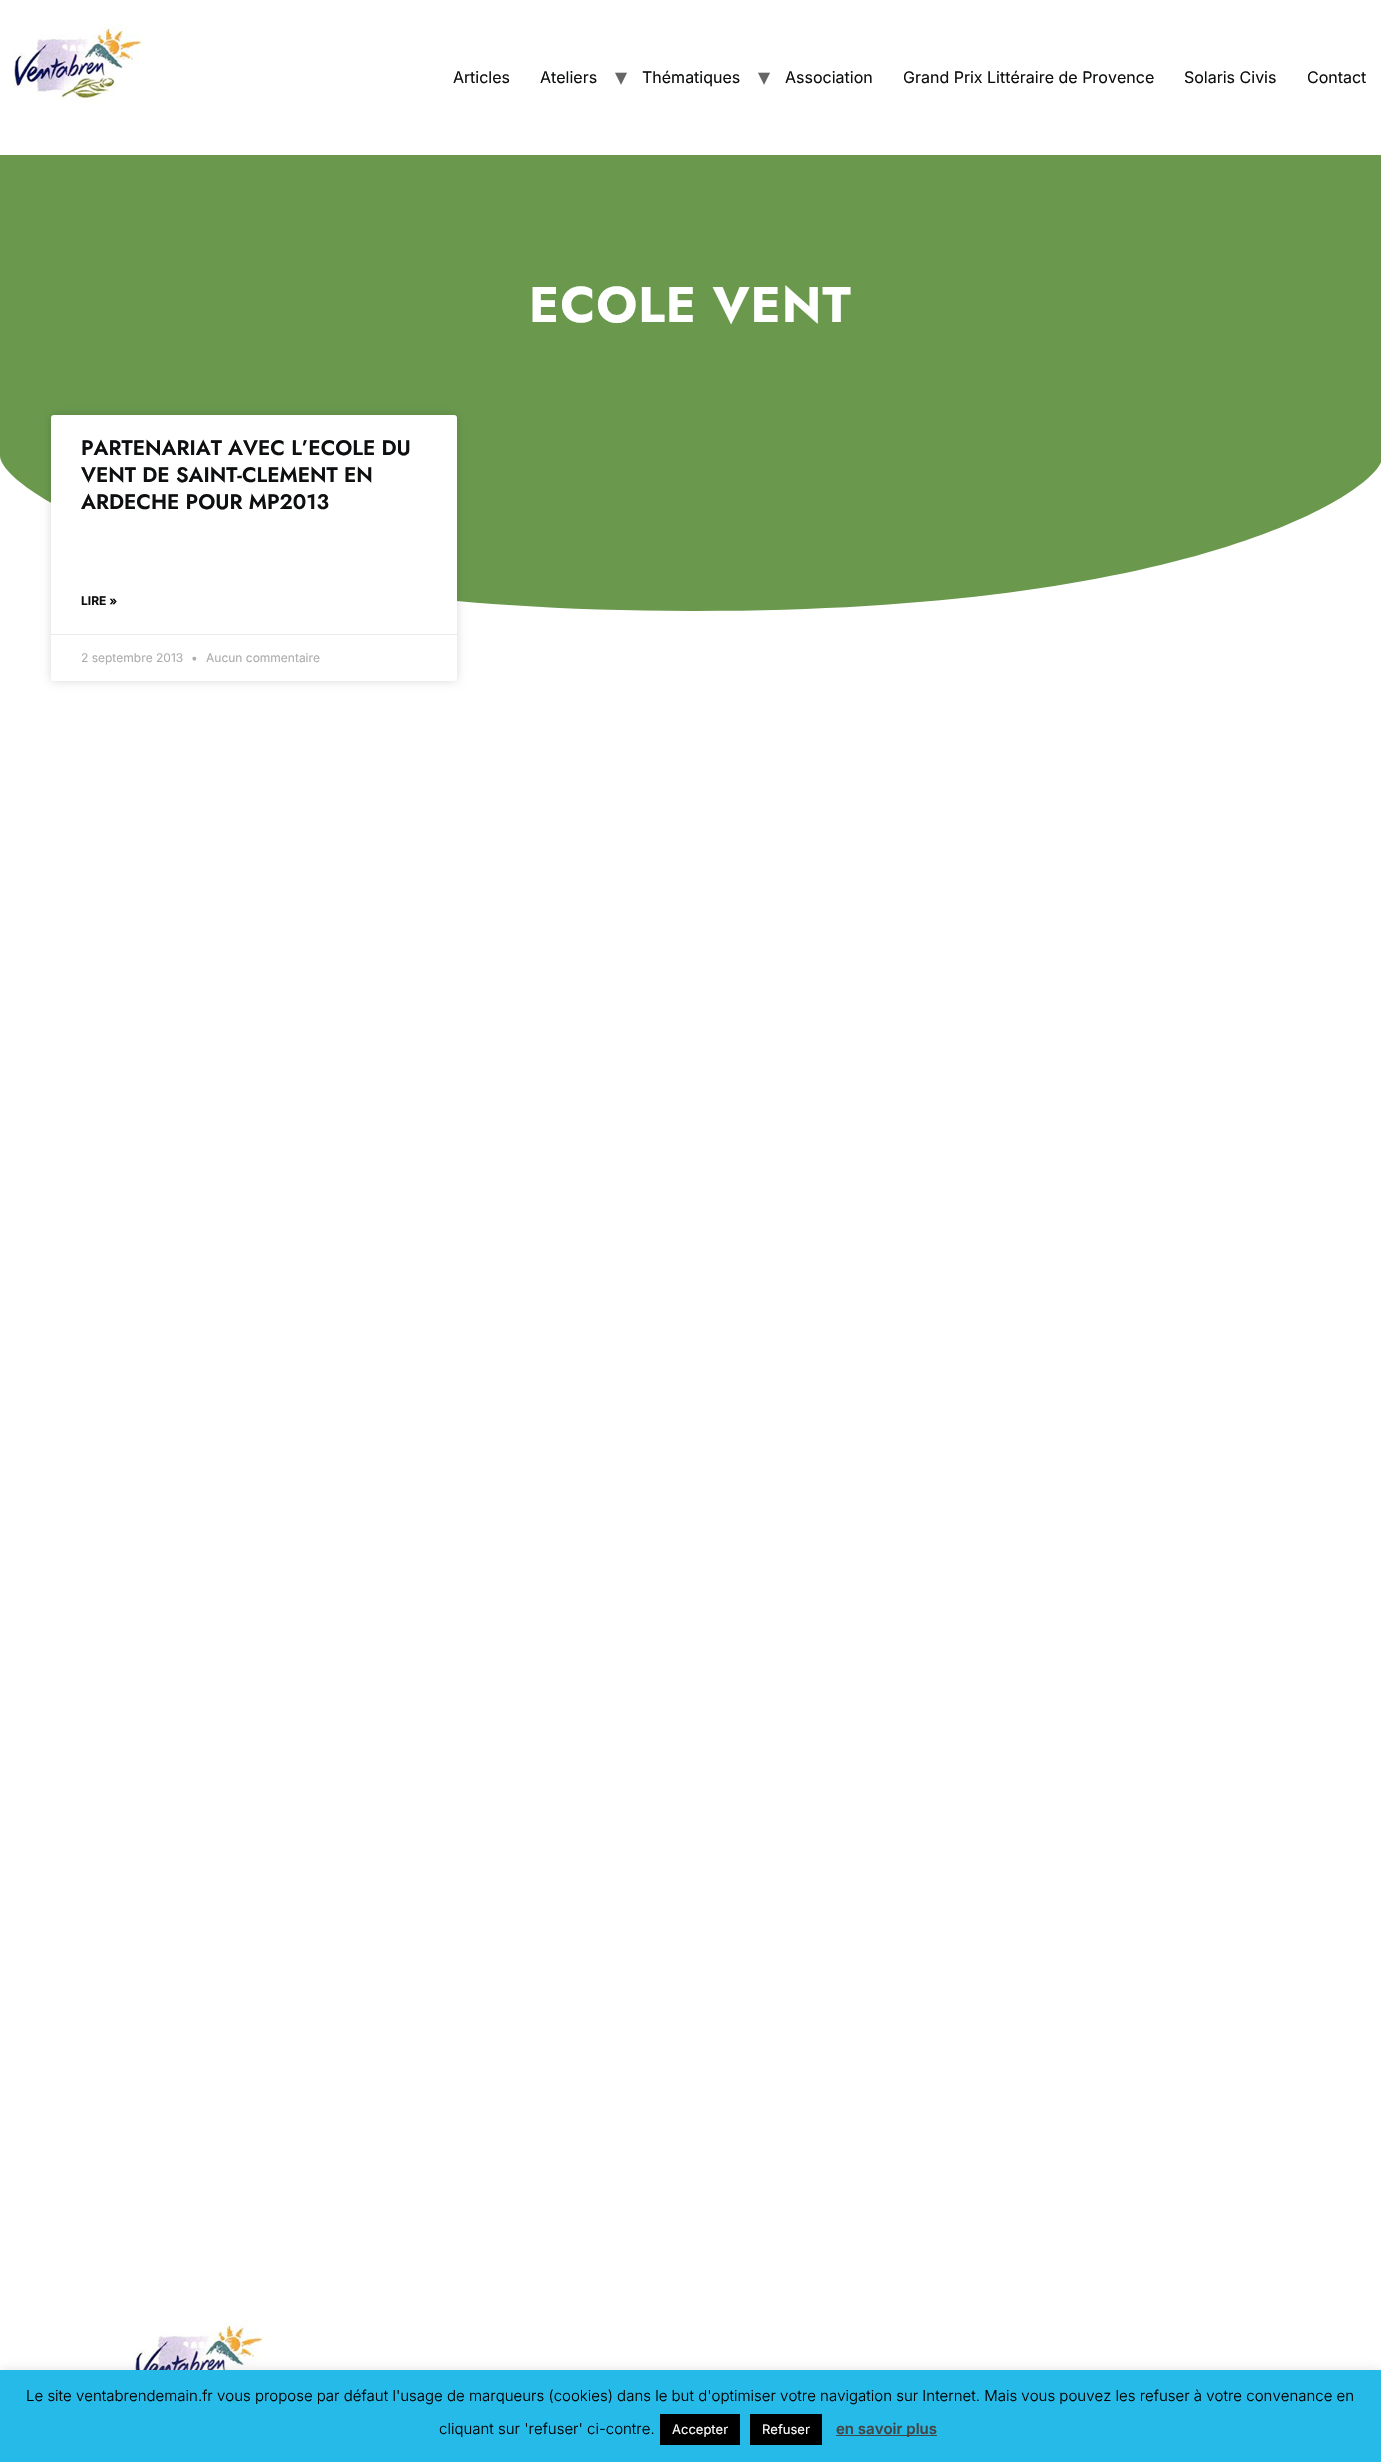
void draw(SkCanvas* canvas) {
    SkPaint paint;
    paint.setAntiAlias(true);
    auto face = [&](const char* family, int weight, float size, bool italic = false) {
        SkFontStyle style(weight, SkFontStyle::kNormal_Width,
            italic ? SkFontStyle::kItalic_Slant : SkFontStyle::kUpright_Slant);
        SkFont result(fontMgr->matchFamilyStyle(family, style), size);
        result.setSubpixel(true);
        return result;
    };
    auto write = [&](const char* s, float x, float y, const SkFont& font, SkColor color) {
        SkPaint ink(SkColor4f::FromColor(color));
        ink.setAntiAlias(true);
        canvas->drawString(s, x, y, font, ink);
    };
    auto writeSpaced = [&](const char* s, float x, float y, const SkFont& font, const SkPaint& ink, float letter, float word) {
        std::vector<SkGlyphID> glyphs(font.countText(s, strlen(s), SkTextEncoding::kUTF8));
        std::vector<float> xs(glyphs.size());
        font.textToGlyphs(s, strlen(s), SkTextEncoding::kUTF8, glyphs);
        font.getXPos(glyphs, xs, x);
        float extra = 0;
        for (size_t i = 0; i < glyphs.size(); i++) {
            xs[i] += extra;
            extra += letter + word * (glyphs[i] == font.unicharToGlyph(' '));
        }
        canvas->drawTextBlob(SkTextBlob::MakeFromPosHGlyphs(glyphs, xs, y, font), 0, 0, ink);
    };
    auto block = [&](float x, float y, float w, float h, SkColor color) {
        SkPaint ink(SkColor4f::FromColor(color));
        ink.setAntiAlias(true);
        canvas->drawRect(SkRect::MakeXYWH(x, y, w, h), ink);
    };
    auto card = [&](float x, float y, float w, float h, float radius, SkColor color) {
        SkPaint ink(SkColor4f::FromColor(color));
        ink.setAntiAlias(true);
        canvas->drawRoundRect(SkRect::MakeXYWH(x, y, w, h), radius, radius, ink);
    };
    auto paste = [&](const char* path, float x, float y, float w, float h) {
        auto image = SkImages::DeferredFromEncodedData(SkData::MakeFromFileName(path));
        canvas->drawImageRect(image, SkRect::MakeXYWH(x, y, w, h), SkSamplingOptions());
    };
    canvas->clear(SK_ColorWHITE);
    paste("pic1.png", 9, 23, 135, 81);
    auto kFont1 = face("Inter", 400, 16);
    write("Articles", 453, 83, kFont1, SkColorSetRGB(14, 15, 16));
    write("Ateliers", 540, 83, kFont1, SkColorSetRGB(14, 15, 16));
    auto kFont2 = face("DejaVu Sans", 400, 24);
    write("▾", 615, 85, kFont2, SkColorSetRGB(102, 102, 102));
    write("Thématiques", 642, 83, kFont1, SkColorSetRGB(14, 15, 16));
    write("▾", 758, 85, kFont2, SkColorSetRGB(102, 102, 102));
    write("Association", 785, 83, kFont1, SkColorSetRGB(14, 15, 16));
    write("Grand Prix Littéraire de Provence", 903, 83, kFont1, SkColorSetRGB(14, 15, 16));
    write("Solaris Civis", 1184, 83, kFont1, SkColorSetRGB(14, 15, 16));
    write("Contact", 1307, 83, kFont1, SkColorSetRGB(14, 15, 16));
    block(0, 155, 1381, 456, SkColorSetRGB(106, 153, 78));
    auto kFont3 = face("Jost", 700, 50);
    paint.setColor(SK_ColorWHITE);
    writeSpaced("ECOLE VENT", 529, 322, kFont3, paint, 1, 0);
    canvas->drawPath(SkPathBuilder().moveTo(691, 611).cubicTo(175, 610, 1, 488, 0, 456).lineTo(0, 616).lineTo(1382, 616).lineTo(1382, 458).cubicTo(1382, 487, 1207, 612, 691, 611).close().detach(), paint);
    paint.setColor(SkColorSetARGB(38, 0, 0, 0));
    paint.setMaskFilter(SkMaskFilter::MakeBlur(kNormal_SkBlurStyle, 5));
    canvas->drawRoundRect(SkRect::MakeXYWH(51, 415, 406, 266), 3, 3, paint);
    paint.setMaskFilter(nullptr);
    card(51, 415, 406, 266, 3, SK_ColorWHITE);
    auto kFont4 = face("Jost", 600, 21);
    write("PARTENARIAT AVEC L’ECOLE DU", 81, 455, kFont4, SkColorSetRGB(14, 15, 16));
    write("VENT DE SAINT-CLEMENT EN", 81, 482, kFont4, SkColorSetRGB(14, 15, 16));
    write("ARDECHE POUR MP2013", 81, 509, kFont4, SkColorSetRGB(14, 15, 16));
    auto kFont5 = face("Inter", 700, 12);
    write("LIRE »", 81, 605, kFont5, SkColorSetRGB(14, 15, 16));
    block(51, 634, 406, 1, SkColorSetRGB(234, 234, 234));
    auto kFont6 = face("Inter", 400, 12);
    write("2 septembre 2013", 81, 662, kFont6, SkColorSetRGB(173, 173, 173));
    write("•", 191, 662, kFont6, SkColorSetRGB(173, 173, 173));
    write("Aucun commentaire", 206, 662, kFont6, SkColorSetRGB(173, 173, 173));
    paste("pic2.png", 130, 2320, 135, 50);
    paint.setColor(SkColorSetARGB(77, 172, 171, 171));
    paint.setMaskFilter(SkMaskFilter::MakeBlur(kNormal_SkBlurStyle, 5));
    canvas->drawRect(SkRect::MakeXYWH(0, 2369, 1381, 92), paint);
    paint.setMaskFilter(nullptr);
    block(0, 2370, 1381, 92, SkColorSetRGB(37, 186, 232));
    auto kFont7 = face("Inter", 300, 15);
    write("Le site ventabrendemain.fr vous propose par défaut l'usage de marqueurs (cookies) dans le but d'optimiser votre navigation sur Internet. Mais vous pouvez les refuser à votre convenance en", 26, 2401, kFont7, SK_ColorBLACK);
    write("cliquant sur 'refuser' ci-contre.", 439, 2434, kFont7, SK_ColorBLACK);
    block(660, 2414, 80, 31, SK_ColorBLACK);
    auto kFont8 = face("Inter", 400, 13);
    write("Accepter", 672, 2434, kFont8, SK_ColorWHITE);
    block(750, 2414, 72, 31, SK_ColorBLACK);
    write("Refuser", 762, 2434, kFont8, SK_ColorWHITE);
    block(836, 2435, 101, 1, SkColorSetRGB(68, 68, 68));
    auto kFont9 = face("Inter", 600, 15);
    write("en savoir plus", 836, 2434, kFont9, SkColorSetRGB(68, 68, 68));
}
